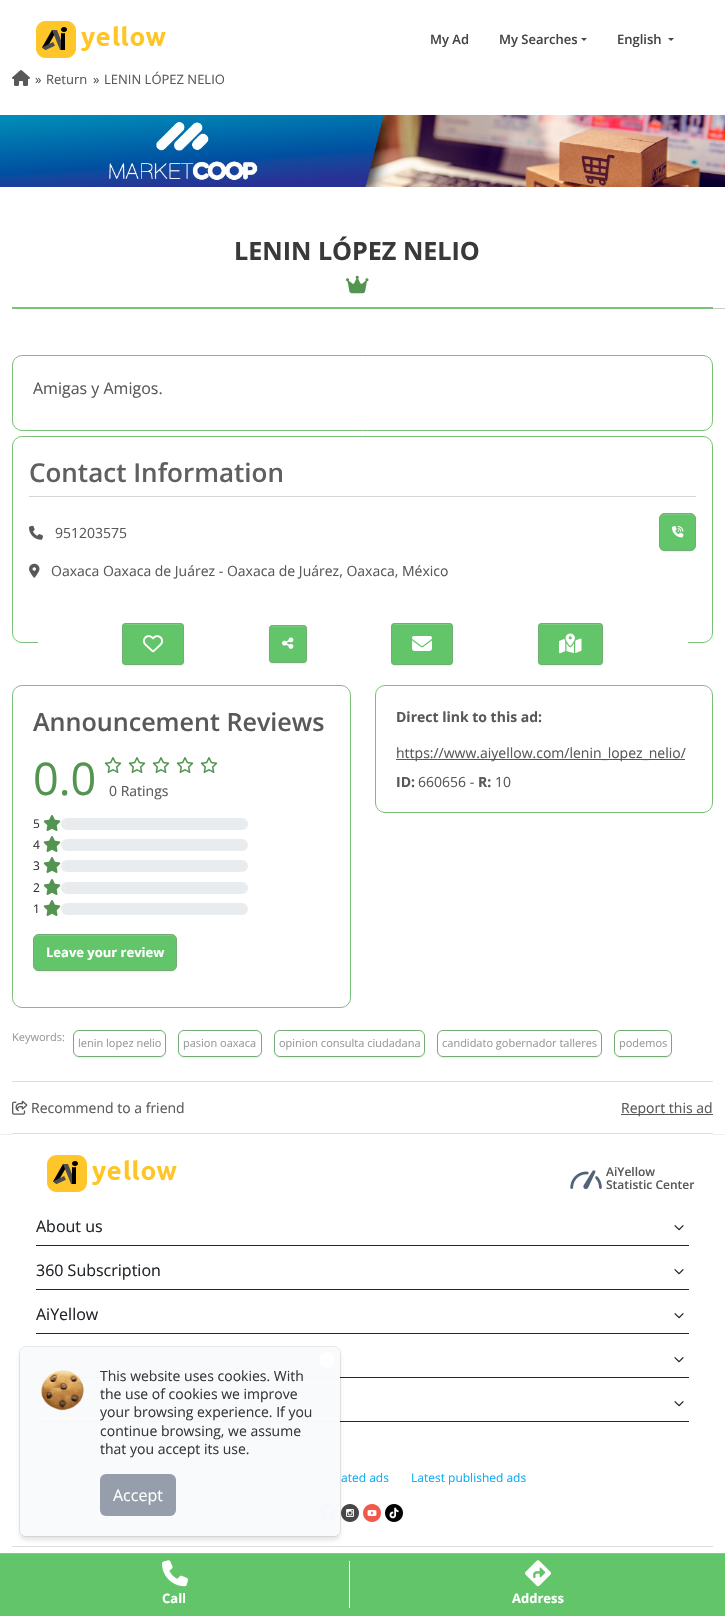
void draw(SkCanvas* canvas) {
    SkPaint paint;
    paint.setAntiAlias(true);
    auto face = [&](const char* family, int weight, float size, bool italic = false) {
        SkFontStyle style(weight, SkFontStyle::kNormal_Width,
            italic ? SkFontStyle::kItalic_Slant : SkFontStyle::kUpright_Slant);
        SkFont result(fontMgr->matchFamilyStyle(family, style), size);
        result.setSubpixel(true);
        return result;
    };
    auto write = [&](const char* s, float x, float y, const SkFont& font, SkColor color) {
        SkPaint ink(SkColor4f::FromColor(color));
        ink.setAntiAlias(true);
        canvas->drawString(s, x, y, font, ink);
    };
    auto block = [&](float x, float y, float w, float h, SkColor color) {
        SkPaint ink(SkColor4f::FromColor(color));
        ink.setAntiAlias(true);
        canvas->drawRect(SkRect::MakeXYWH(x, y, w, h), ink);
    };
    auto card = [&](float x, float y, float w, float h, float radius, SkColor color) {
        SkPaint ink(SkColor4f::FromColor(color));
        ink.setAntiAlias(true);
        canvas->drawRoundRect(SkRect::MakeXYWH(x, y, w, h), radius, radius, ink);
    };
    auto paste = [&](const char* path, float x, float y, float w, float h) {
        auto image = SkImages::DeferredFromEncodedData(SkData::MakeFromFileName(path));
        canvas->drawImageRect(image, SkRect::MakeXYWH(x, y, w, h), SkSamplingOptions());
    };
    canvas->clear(SK_ColorWHITE);
    paste("pic1.png", 36, 21, 130, 37);
    auto kFont1 = face("Open Sans", 600, 13);
    write("My Ad", 430, 44, kFont1, SkColorSetRGB(69, 69, 69));
    write("My Searches", 499, 44, kFont1, SkColorSetRGB(69, 69, 69));
    paint.setColor(SkColorSetRGB(69, 69, 69));
    canvas->drawPath(SkPathBuilder().moveTo(581, 38).lineTo(587, 38).lineTo(584, 41).close().detach(), paint);
    write("English", 617, 44, kFont1, SkColorSetRGB(69, 69, 69));
    canvas->drawPath(SkPathBuilder().moveTo(668, 38).lineTo(674, 38).lineTo(671, 41).close().detach(), paint);
    paste("pic2.png", 12, 70, 18, 16);
    auto kFont2 = face("Open Sans", 400, 13);
    write("»", 35, 84, kFont2, SkColorSetRGB(89, 89, 89));
    write("Return", 46, 84, kFont2, SkColorSetRGB(89, 89, 89));
    write("»", 93, 84, kFont2, SkColorSetRGB(89, 89, 89));
    write("LENIN LÓPEZ NELIO", 104, 84, kFont2, SkColorSetRGB(89, 89, 89));
    paste("pic3.png", 0, 115, 725, 72);
    auto kFont3 = face("Open Sans", 700, 25.1f);
    write("LENIN LÓPEZ NELIO", 234, 260, kFont3, SkColorSetRGB(57, 57, 57));
    paste("pic4.png", 346, 275, 23, 19);
    block(12, 307, 701, 2, SkColorSetRGB(122, 193, 120));
    block(713, 308, 12, 1, SkColorSetRGB(204, 204, 204));
    paint.setStyle(SkPaint::kStroke_Style);
    paint.setStrokeWidth(1);
    paint.setColor(SkColorSetRGB(122, 193, 120));
    canvas->drawRoundRect(SkRect::MakeXYWH(12.5f, 355.5f, 700, 75), 9.5f, 9.5f, paint);
    auto kFont4 = face("Open Sans", 400, 16);
    write("Amigas y Amigos.", 33, 394, kFont4, SkColorSetRGB(89, 89, 89));
    canvas->drawRoundRect(SkRect::MakeXYWH(12.5f, 436.5f, 700, 206), 9.5f, 9.5f, paint);
    auto kFont5 = face("Open Sans", 600, 26);
    write("Contact Information", 29, 482, kFont5, SkColorSetRGB(96, 96, 96));
    block(29, 496, 667, 1, SkColorSetRGB(214, 214, 214));
    paste("pic5.png", 29, 525, 14, 15);
    auto kFont6 = face("Open Sans", 400, 14);
    write("951203575", 55, 538, kFont6, SkColorSetRGB(89, 89, 89));
    paint.setStyle(SkPaint::kFill_Style);
    paint.setColor(SkColorSetARGB(18, 0, 0, 0));
    paint.setMaskFilter(SkMaskFilter::MakeBlur(kNormal_SkBlurStyle, 0.5f));
    canvas->drawRoundRect(SkRect::MakeXYWH(659, 514, 37, 38), 6, 6, paint);
    paint.setMaskFilter(nullptr);
    card(659, 513, 37, 38, 6, SkColorSetRGB(99, 197, 106));
    paint.setColor(SkColorSetRGB(122, 206, 128));
    canvas->drawPath(SkPathBuilder().moveTo(665, 515).lineTo(690, 515).cubicTo(693, 515, 695, 517, 695, 520).cubicTo(695, 514, 691, 514, 686, 514).lineTo(669, 514).cubicTo(664, 514, 660, 514, 660, 520).cubicTo(660, 517, 662, 515, 665, 515).close().detach(), paint);
    paint.setStyle(SkPaint::kStroke_Style);
    paint.setColor(SkColorSetRGB(117, 172, 115));
    canvas->drawRoundRect(SkRect::MakeXYWH(659.5f, 513.5f, 36, 37), 5.5f, 5.5f, paint);
    paste("pic6.png", 672, 526, 12, 12);
    paste("pic7.png", 29, 563, 11, 15);
    write("Oaxaca Oaxaca de Juárez - Oaxaca de Juárez, Oaxaca, México", 51, 576, kFont6, SkColorSetRGB(89, 89, 89));
    block(38, 642, 650, 1, SK_ColorWHITE);
    paint.setStyle(SkPaint::kFill_Style);
    paint.setColor(SkColorSetARGB(18, 0, 0, 0));
    paint.setMaskFilter(SkMaskFilter::MakeBlur(kNormal_SkBlurStyle, 0.5f));
    canvas->drawRoundRect(SkRect::MakeXYWH(122, 624, 62, 42), 4, 4, paint);
    paint.setMaskFilter(nullptr);
    card(122, 623, 62, 42, 4, SkColorSetRGB(99, 197, 106));
    paint.setColor(SkColorSetRGB(122, 206, 128));
    canvas->drawPath(SkPathBuilder().moveTo(126, 625).lineTo(180, 625).cubicTo(182, 625, 183, 626, 183, 628).cubicTo(183, 622, 175, 624, 171, 624).lineTo(135, 624).cubicTo(131, 624, 123, 622, 123, 628).cubicTo(123, 626, 124, 625, 126, 625).close().detach(), paint);
    paint.setStyle(SkPaint::kStroke_Style);
    paint.setColor(SkColorSetRGB(117, 172, 115));
    canvas->drawRoundRect(SkRect::MakeXYWH(122.5f, 623.5f, 61, 41), 3.5f, 3.5f, paint);
    paste("pic8.png", 143, 635, 20, 18);
    paint.setStyle(SkPaint::kFill_Style);
    paint.setColor(SkColorSetARGB(18, 0, 0, 0));
    paint.setMaskFilter(SkMaskFilter::MakeBlur(kNormal_SkBlurStyle, 0.5f));
    canvas->drawRoundRect(SkRect::MakeXYWH(269, 626, 38, 38), 4, 4, paint);
    paint.setMaskFilter(nullptr);
    card(269, 625, 38, 38, 4, SkColorSetRGB(99, 197, 106));
    paint.setColor(SkColorSetRGB(122, 206, 128));
    canvas->drawPath(SkPathBuilder().moveTo(273, 627).lineTo(303, 627).cubicTo(305, 627, 306, 628, 306, 630).cubicTo(306, 625, 302, 626, 298, 626).lineTo(278, 626).cubicTo(274, 626, 270, 625, 270, 630).cubicTo(270, 628, 271, 627, 273, 627).close().detach(), paint);
    paint.setStyle(SkPaint::kStroke_Style);
    paint.setColor(SkColorSetRGB(117, 172, 115));
    canvas->drawRoundRect(SkRect::MakeXYWH(269.5f, 625.5f, 37, 37), 3.5f, 3.5f, paint);
    paste("pic9.png", 282, 637, 12, 12);
    paint.setStyle(SkPaint::kFill_Style);
    paint.setColor(SkColorSetARGB(18, 0, 0, 0));
    paint.setMaskFilter(SkMaskFilter::MakeBlur(kNormal_SkBlurStyle, 0.5f));
    canvas->drawRoundRect(SkRect::MakeXYWH(391, 624, 62, 42), 4, 4, paint);
    paint.setMaskFilter(nullptr);
    card(391, 623, 62, 42, 4, SkColorSetRGB(99, 197, 106));
    paint.setColor(SkColorSetRGB(122, 206, 128));
    canvas->drawPath(SkPathBuilder().moveTo(395, 625).lineTo(449, 625).cubicTo(451, 625, 452, 626, 452, 628).cubicTo(452, 622, 444, 624, 440, 624).lineTo(404, 624).cubicTo(400, 624, 392, 622, 392, 628).cubicTo(392, 626, 393, 625, 395, 625).close().detach(), paint);
    paint.setStyle(SkPaint::kStroke_Style);
    paint.setColor(SkColorSetRGB(117, 172, 115));
    canvas->drawRoundRect(SkRect::MakeXYWH(391.5f, 623.5f, 61, 41), 3.5f, 3.5f, paint);
    paste("pic10.png", 412, 636, 20, 15);
    paint.setStyle(SkPaint::kFill_Style);
    paint.setColor(SkColorSetARGB(18, 0, 0, 0));
    paint.setMaskFilter(SkMaskFilter::MakeBlur(kNormal_SkBlurStyle, 0.5f));
    canvas->drawRoundRect(SkRect::MakeXYWH(538, 624, 65, 42), 4, 4, paint);
    paint.setMaskFilter(nullptr);
    card(538, 623, 65, 42, 4, SkColorSetRGB(99, 197, 106));
    paint.setColor(SkColorSetRGB(122, 206, 128));
    canvas->drawPath(SkPathBuilder().moveTo(542, 625).lineTo(599, 625).cubicTo(601, 625, 602, 626, 602, 628).cubicTo(602, 622, 594, 624, 590, 624).lineTo(552, 624).cubicTo(547, 624, 539, 622, 539, 628).cubicTo(539, 626, 540, 625, 542, 625).close().detach(), paint);
    paint.setStyle(SkPaint::kStroke_Style);
    paint.setColor(SkColorSetRGB(117, 172, 115));
    canvas->drawRoundRect(SkRect::MakeXYWH(538.5f, 623.5f, 64, 41), 3.5f, 3.5f, paint);
    paste("pic11.png", 559, 633, 23, 21);
    paint.setColor(SkColorSetRGB(122, 193, 120));
    canvas->drawRoundRect(SkRect::MakeXYWH(12.5f, 685.5f, 338, 322), 9.5f, 9.5f, paint);
    auto kFont7 = face("Open Sans", 600, 25.1f);
    write("Announcement Reviews", 33, 731, kFont7, SkColorSetRGB(89, 89, 89));
    auto kFont8 = face("Open Sans", 400, 45);
    write("0.0", 33, 795, kFont8, SkColorSetRGB(82, 148, 80));
    paste("pic12.png", 104, 757, 18, 16);
    paste("pic12.png", 128, 757, 18, 16);
    paste("pic12.png", 152, 757, 18, 16);
    paste("pic12.png", 176, 757, 18, 16);
    paste("pic12.png", 200, 757, 18, 16);
    write("0 Ratings", 109, 796, kFont6, SkColorSetRGB(89, 89, 89));
    auto kFont9 = face("Open Sans", 400, 12);
    write("5", 33, 828, kFont9, SkColorSetRGB(51, 51, 51));
    paste("pic13.png", 43, 815, 18, 16);
    card(61, 818, 187, 12, 6, SkColorSetRGB(233, 236, 239));
    write("4", 33, 849, kFont9, SkColorSetRGB(51, 51, 51));
    paste("pic13.png", 43, 836, 18, 16);
    card(61, 839, 187, 12, 6, SkColorSetRGB(233, 236, 239));
    write("3", 33, 870, kFont9, SkColorSetRGB(51, 51, 51));
    paste("pic13.png", 43, 857, 18, 16);
    card(61, 860, 187, 12, 6, SkColorSetRGB(233, 236, 239));
    write("2", 33, 892, kFont9, SkColorSetRGB(51, 51, 51));
    paste("pic13.png", 43, 879, 18, 16);
    card(61, 882, 187, 12, 6, SkColorSetRGB(233, 236, 239));
    write("1", 33, 913, kFont9, SkColorSetRGB(51, 51, 51));
    paste("pic13.png", 43, 900, 18, 16);
    card(61, 903, 187, 12, 6, SkColorSetRGB(233, 236, 239));
    paint.setStyle(SkPaint::kFill_Style);
    paint.setColor(SkColorSetARGB(18, 0, 0, 0));
    paint.setMaskFilter(SkMaskFilter::MakeBlur(kNormal_SkBlurStyle, 0.5f));
    canvas->drawRoundRect(SkRect::MakeXYWH(33, 935, 144, 37), 6, 6, paint);
    paint.setMaskFilter(nullptr);
    card(33, 934, 144, 37, 6, SkColorSetRGB(99, 197, 106));
    paint.setColor(SkColorSetRGB(122, 206, 128));
    canvas->drawPath(SkPathBuilder().moveTo(39, 936).lineTo(171, 936).cubicTo(174, 936, 176, 938, 176, 941).lineTo(176, 940).cubicTo(176, 937, 174, 935, 171, 935).lineTo(39, 935).cubicTo(36, 935, 34, 937, 34, 940).lineTo(34, 941).cubicTo(34, 938, 36, 936, 39, 936).close().detach(), paint);
    paint.setStyle(SkPaint::kStroke_Style);
    paint.setColor(SkColorSetRGB(117, 172, 115));
    canvas->drawRoundRect(SkRect::MakeXYWH(33.5f, 934.5f, 143, 36), 5.5f, 5.5f, paint);
    auto kFont10 = face("Open Sans", 700, 13);
    write("Leave your review", 46, 957, kFont10, SK_ColorWHITE);
    paint.setColor(SkColorSetRGB(122, 193, 120));
    canvas->drawRoundRect(SkRect::MakeXYWH(375.5f, 685.5f, 337, 127), 9.5f, 9.5f, paint);
    auto kFont11 = face("Open Sans", 700, 14);
    write("Direct link to this ad:", 396, 722, kFont11, SkColorSetRGB(89, 89, 89));
    block(396, 759, 289, 1, SkColorSetRGB(89, 89, 89));
    write("https://www.aiyellow.com/lenin_lopez_nelio/", 396, 758, kFont6, SkColorSetRGB(89, 89, 89));
    write("ID:", 396, 787, kFont11, SkColorSetRGB(89, 89, 89));
    write("660656 -", 418, 787, kFont6, SkColorSetRGB(89, 89, 89));
    write("R:", 478, 787, kFont11, SkColorSetRGB(89, 89, 89));
    write("10", 495, 787, kFont6, SkColorSetRGB(89, 89, 89));
    auto kFont12 = face("Open Sans", 400, 11);
    write("Keywords:", 12, 1041, kFont12, SkColorSetRGB(153, 153, 153));
    canvas->save();
    canvas->clipPath(SkPathBuilder(SkPathFillType::kEvenOdd).moveTo(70, 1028).lineTo(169, 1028).lineTo(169, 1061).lineTo(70, 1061).close().moveTo(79, 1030).lineTo(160, 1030).cubicTo(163.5f, 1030, 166, 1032.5f, 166, 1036).lineTo(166, 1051).cubicTo(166, 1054.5f, 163.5f, 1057, 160, 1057).lineTo(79, 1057).cubicTo(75.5f, 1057, 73, 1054.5f, 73, 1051).lineTo(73, 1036).cubicTo(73, 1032.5f, 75.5f, 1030, 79, 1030).close().detach(), true);
    paint.setStyle(SkPaint::kFill_Style);
    paint.setColor(SkColorSetARGB(18, 0, 0, 0));
    paint.setMaskFilter(SkMaskFilter::MakeBlur(kNormal_SkBlurStyle, 0.5f));
    canvas->drawRoundRect(SkRect::MakeXYWH(73, 1031, 93, 27), 6, 6, paint);
    paint.setMaskFilter(nullptr);
    canvas->restore();
    paint.setStyle(SkPaint::kStroke_Style);
    paint.setColor(SkColorSetRGB(117, 172, 115));
    canvas->drawRoundRect(SkRect::MakeXYWH(73.5f, 1030.5f, 92, 26), 5.5f, 5.5f, paint);
    write("lenin lopez nelio", 78, 1047, kFont12, SkColorSetRGB(153, 153, 153));
    canvas->save();
    canvas->clipPath(SkPathBuilder(SkPathFillType::kEvenOdd).moveTo(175, 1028).lineTo(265, 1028).lineTo(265, 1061).lineTo(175, 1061).close().moveTo(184, 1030).lineTo(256, 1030).cubicTo(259.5f, 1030, 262, 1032.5f, 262, 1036).lineTo(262, 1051).cubicTo(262, 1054.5f, 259.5f, 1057, 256, 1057).lineTo(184, 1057).cubicTo(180.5f, 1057, 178, 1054.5f, 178, 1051).lineTo(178, 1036).cubicTo(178, 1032.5f, 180.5f, 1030, 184, 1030).close().detach(), true);
    paint.setStyle(SkPaint::kFill_Style);
    paint.setColor(SkColorSetARGB(18, 0, 0, 0));
    paint.setMaskFilter(SkMaskFilter::MakeBlur(kNormal_SkBlurStyle, 0.5f));
    canvas->drawRoundRect(SkRect::MakeXYWH(178, 1031, 84, 27), 6, 6, paint);
    paint.setMaskFilter(nullptr);
    canvas->restore();
    paint.setStyle(SkPaint::kStroke_Style);
    paint.setColor(SkColorSetRGB(117, 172, 115));
    canvas->drawRoundRect(SkRect::MakeXYWH(178.5f, 1030.5f, 83, 26), 5.5f, 5.5f, paint);
    write("pasion oaxaca", 183, 1047, kFont12, SkColorSetRGB(153, 153, 153));
    canvas->save();
    canvas->clipPath(SkPathBuilder(SkPathFillType::kEvenOdd).moveTo(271, 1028).lineTo(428, 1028).lineTo(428, 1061).lineTo(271, 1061).close().moveTo(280, 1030).lineTo(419, 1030).cubicTo(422.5f, 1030, 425, 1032.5f, 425, 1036).lineTo(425, 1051).cubicTo(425, 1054.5f, 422.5f, 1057, 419, 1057).lineTo(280, 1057).cubicTo(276.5f, 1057, 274, 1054.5f, 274, 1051).lineTo(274, 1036).cubicTo(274, 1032.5f, 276.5f, 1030, 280, 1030).close().detach(), true);
    paint.setStyle(SkPaint::kFill_Style);
    paint.setColor(SkColorSetARGB(18, 0, 0, 0));
    paint.setMaskFilter(SkMaskFilter::MakeBlur(kNormal_SkBlurStyle, 0.5f));
    canvas->drawRoundRect(SkRect::MakeXYWH(274, 1031, 151, 27), 6, 6, paint);
    paint.setMaskFilter(nullptr);
    canvas->restore();
    paint.setStyle(SkPaint::kStroke_Style);
    paint.setColor(SkColorSetRGB(117, 172, 115));
    canvas->drawRoundRect(SkRect::MakeXYWH(274.5f, 1030.5f, 150, 26), 5.5f, 5.5f, paint);
    write("opinion consulta ciudadana", 279, 1047, kFont12, SkColorSetRGB(153, 153, 153));
    canvas->save();
    canvas->clipPath(SkPathBuilder(SkPathFillType::kEvenOdd).moveTo(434, 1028).lineTo(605, 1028).lineTo(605, 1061).lineTo(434, 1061).close().moveTo(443, 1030).lineTo(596, 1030).cubicTo(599.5f, 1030, 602, 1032.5f, 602, 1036).lineTo(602, 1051).cubicTo(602, 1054.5f, 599.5f, 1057, 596, 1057).lineTo(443, 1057).cubicTo(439.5f, 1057, 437, 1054.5f, 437, 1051).lineTo(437, 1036).cubicTo(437, 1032.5f, 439.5f, 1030, 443, 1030).close().detach(), true);
    paint.setStyle(SkPaint::kFill_Style);
    paint.setColor(SkColorSetARGB(18, 0, 0, 0));
    paint.setMaskFilter(SkMaskFilter::MakeBlur(kNormal_SkBlurStyle, 0.5f));
    canvas->drawRoundRect(SkRect::MakeXYWH(437, 1031, 165, 27), 6, 6, paint);
    paint.setMaskFilter(nullptr);
    canvas->restore();
    paint.setStyle(SkPaint::kStroke_Style);
    paint.setColor(SkColorSetRGB(117, 172, 115));
    canvas->drawRoundRect(SkRect::MakeXYWH(437.5f, 1030.5f, 164, 26), 5.5f, 5.5f, paint);
    write("candidato gobernador talleres", 442, 1047, kFont12, SkColorSetRGB(153, 153, 153));
    canvas->save();
    canvas->clipPath(SkPathBuilder(SkPathFillType::kEvenOdd).moveTo(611, 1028).lineTo(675, 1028).lineTo(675, 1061).lineTo(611, 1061).close().moveTo(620, 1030).lineTo(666, 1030).cubicTo(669.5f, 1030, 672, 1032.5f, 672, 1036).lineTo(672, 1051).cubicTo(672, 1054.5f, 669.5f, 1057, 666, 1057).lineTo(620, 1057).cubicTo(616.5f, 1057, 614, 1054.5f, 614, 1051).lineTo(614, 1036).cubicTo(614, 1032.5f, 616.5f, 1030, 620, 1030).close().detach(), true);
    paint.setStyle(SkPaint::kFill_Style);
    paint.setColor(SkColorSetARGB(18, 0, 0, 0));
    paint.setMaskFilter(SkMaskFilter::MakeBlur(kNormal_SkBlurStyle, 0.5f));
    canvas->drawRoundRect(SkRect::MakeXYWH(614, 1031, 58, 27), 6, 6, paint);
    paint.setMaskFilter(nullptr);
    canvas->restore();
    paint.setStyle(SkPaint::kStroke_Style);
    paint.setColor(SkColorSetRGB(117, 172, 115));
    canvas->drawRoundRect(SkRect::MakeXYWH(614.5f, 1030.5f, 57, 26), 5.5f, 5.5f, paint);
    write("podemos", 619, 1047, kFont12, SkColorSetRGB(153, 153, 153));
    block(0, 1134, 725, 1, SkColorSetRGB(238, 238, 238));
    block(12, 1134, 701, 1, SK_ColorWHITE);
    block(12, 1081, 701, 1, SkColorSetRGB(221, 221, 221));
    block(12, 1133, 701, 1, SkColorSetRGB(221, 221, 221));
    paste("pic14.png", 12, 1100, 16, 15);
    write("Recommend to a friend", 31, 1113, kFont6, SkColorSetRGB(89, 89, 89));
    block(621, 1114, 92, 1, SkColorSetRGB(89, 89, 89));
    write("Report this ad", 621, 1113, kFont6, SkColorSetRGB(89, 89, 89));
    paste("pic1.png", 47, 1155, 130, 37);
    paste("pic15.png", 570, 1170, 32, 20);
    auto kFont13 = face("Open Sans", 600, 12);
    write("AiYellow", 606, 1176, kFont13, SkColorSetRGB(89, 89, 89));
    write("Statistic Center", 606, 1189, kFont13, SkColorSetRGB(89, 89, 89));
    block(36, 1245, 653, 1, SkColorSetRGB(33, 37, 41));
    write("About us", 36, 1232, kFont4, SkColorSetRGB(33, 37, 41));
    paste("pic16.png", 674, 1225, 10, 6);
    block(36, 1289, 653, 1, SkColorSetRGB(33, 37, 41));
    write("360 Subscription", 36, 1276, kFont4, SkColorSetRGB(33, 37, 41));
    paste("pic16.png", 674, 1269, 10, 6);
    block(36, 1333, 653, 1, SkColorSetRGB(33, 37, 41));
    write("AiYellow", 36, 1320, kFont4, SkColorSetRGB(33, 37, 41));
    paste("pic16.png", 674, 1313, 10, 6);
    block(36, 1377, 653, 1, SkColorSetRGB(33, 37, 41));
    paste("pic16.png", 674, 1357, 10, 6);
    block(36, 1421, 653, 1, SkColorSetRGB(33, 37, 41));
    paste("pic16.png", 674, 1401, 10, 6);
    block(12, 1546, 701, 1, SkColorSetRGB(221, 221, 221));
    write("ated ads", 341, 1482, kFont9, SkColorSetRGB(11, 173, 245));
    write("Latest published ads", 411, 1482, kFont9, SkColorSetRGB(11, 173, 245));
    paste("pic17.png", 319, 1504, 18, 18);
    paste("pic18.png", 341, 1504, 18, 18);
    paste("pic19.png", 363, 1504, 18, 18);
    paste("pic20.png", 385, 1504, 18, 18);
    paint.setColor(SkColorSetARGB(20, 0, 0, 0));
    canvas->drawRoundRect(SkRect::MakeXYWH(19.5f, 1346.5f, 321, 190), 6.5f, 6.5f, paint);
    canvas->save();
    canvas->clipPath(SkPathBuilder(SkPathFillType::kEvenOdd).moveTo(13, 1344).lineTo(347, 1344).lineTo(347, 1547).lineTo(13, 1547).close().moveTo(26, 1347).lineTo(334, 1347).cubicTo(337.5f, 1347, 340, 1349.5f, 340, 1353).lineTo(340, 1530).cubicTo(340, 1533.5f, 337.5f, 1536, 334, 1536).lineTo(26, 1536).cubicTo(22.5f, 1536, 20, 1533.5f, 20, 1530).lineTo(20, 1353).cubicTo(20, 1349.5f, 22.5f, 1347, 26, 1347).close().detach(), true);
    paint.setStyle(SkPaint::kFill_Style);
    paint.setColor(SkColorSetARGB(26, 0, 0, 0));
    paint.setMaskFilter(SkMaskFilter::MakeBlur(kNormal_SkBlurStyle, 2));
    canvas->drawRoundRect(SkRect::MakeXYWH(20, 1351, 320, 189), 6, 6, paint);
    paint.setMaskFilter(nullptr);
    canvas->restore();
    card(20, 1347, 320, 189, 6, SkColorSetARGB(250, 249, 250, 252));
    paint.setColor(SK_ColorWHITE);
    canvas->drawCircle(327, 1360, 8, paint);
    paste("pic21.png", 41, 1370, 43, 41);
    write("This website uses cookies. With", 100, 1381, kFont6, SkColorSetRGB(57, 57, 57));
    write("the use of cookies we improve", 100, 1399, kFont6, SkColorSetRGB(57, 57, 57));
    write("your browsing experience. If you", 100, 1417, kFont6, SkColorSetRGB(57, 57, 57));
    write("continue browsing, we assume", 100, 1436, kFont6, SkColorSetRGB(57, 57, 57));
    write("that you accept its use.", 100, 1454, kFont6, SkColorSetRGB(57, 57, 57));
    card(100, 1474, 76, 42, 6, SkColorSetRGB(150, 157, 171));
    write("Accept", 113, 1501, kFont4, SK_ColorWHITE);
    block(0, 1554, 725, 62, SkColorSetRGB(99, 197, 106));
    block(0, 1553, 725, 1, SkColorSetRGB(122, 206, 128));
    paste("pic22.png", 162, 1560, 26, 27);
    write("Call", 162, 1603, kFont10, SK_ColorWHITE);
    block(349, 1561, 1, 47, SK_ColorWHITE);
    paste("pic23.png", 525, 1560, 26, 27);
    write("Address", 512, 1603, kFont10, SK_ColorWHITE);
}
